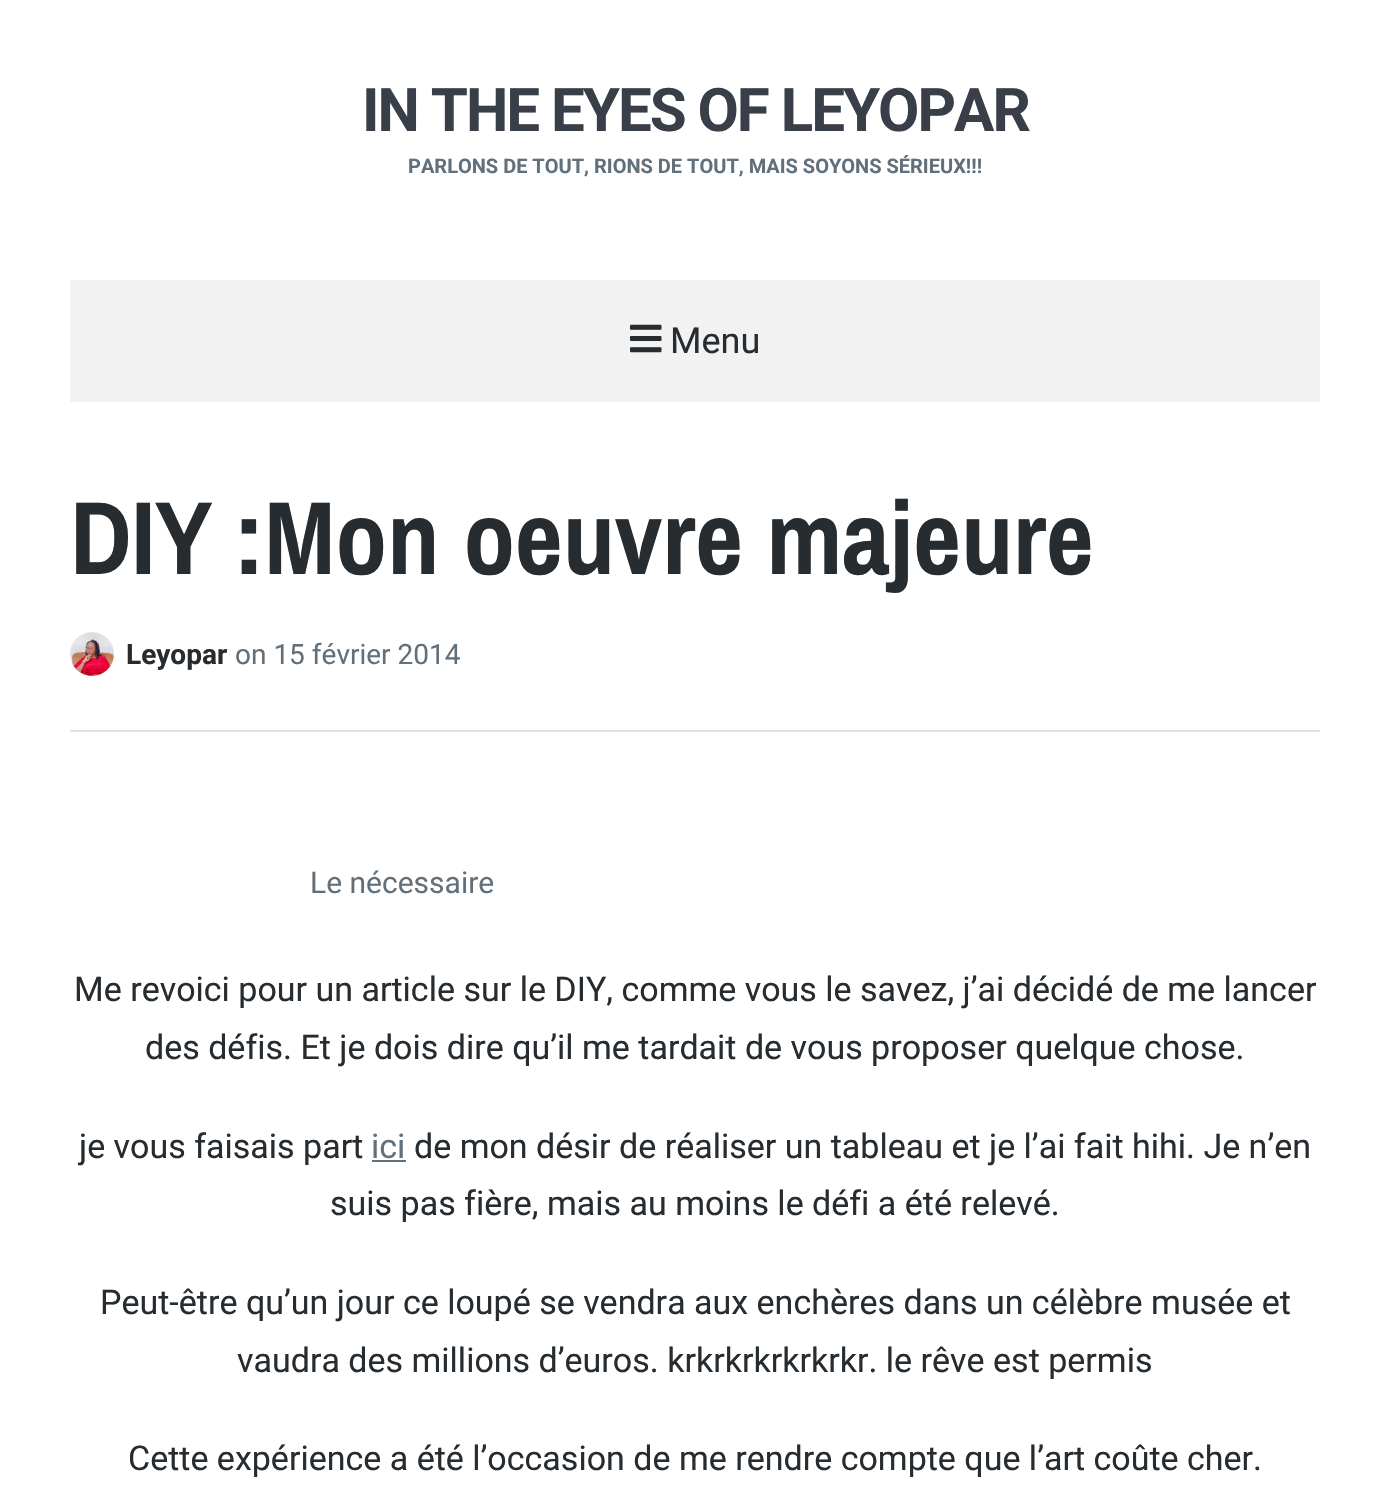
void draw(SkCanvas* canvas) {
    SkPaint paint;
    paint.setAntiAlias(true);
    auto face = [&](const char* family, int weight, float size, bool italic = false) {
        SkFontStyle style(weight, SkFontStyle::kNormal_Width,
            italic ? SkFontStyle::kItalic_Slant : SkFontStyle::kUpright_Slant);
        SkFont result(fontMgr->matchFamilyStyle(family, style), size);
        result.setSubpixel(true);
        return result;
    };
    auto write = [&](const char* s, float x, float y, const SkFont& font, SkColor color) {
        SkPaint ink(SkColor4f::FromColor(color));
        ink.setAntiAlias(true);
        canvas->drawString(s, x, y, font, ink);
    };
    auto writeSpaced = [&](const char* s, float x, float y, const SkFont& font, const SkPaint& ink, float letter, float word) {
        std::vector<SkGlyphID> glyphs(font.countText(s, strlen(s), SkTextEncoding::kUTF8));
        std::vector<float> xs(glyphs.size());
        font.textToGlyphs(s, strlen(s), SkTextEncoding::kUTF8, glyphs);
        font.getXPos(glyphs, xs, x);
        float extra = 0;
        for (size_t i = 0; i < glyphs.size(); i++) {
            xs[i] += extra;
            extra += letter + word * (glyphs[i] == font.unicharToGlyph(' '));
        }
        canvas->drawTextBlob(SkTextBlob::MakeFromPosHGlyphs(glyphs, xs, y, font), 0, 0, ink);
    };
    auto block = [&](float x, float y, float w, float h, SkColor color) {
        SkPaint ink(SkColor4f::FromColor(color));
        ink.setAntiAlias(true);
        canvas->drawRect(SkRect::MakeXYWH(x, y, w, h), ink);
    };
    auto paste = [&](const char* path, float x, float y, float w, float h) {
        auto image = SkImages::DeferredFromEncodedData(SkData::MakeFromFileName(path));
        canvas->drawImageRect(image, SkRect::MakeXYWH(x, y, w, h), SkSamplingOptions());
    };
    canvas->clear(SK_ColorWHITE);
    auto kFont1 = face("Roboto", 700, 60);
    paint.setColor(SkColorSetRGB(56, 63, 73));
    writeSpaced("IN THE EYES OF LEYOPAR", 362, 131, kFont1, paint, -2, 0);
    auto kFont2 = face("Roboto", 700, 20);
    write("PARLONS DE TOUT, RIONS DE TOUT, MAIS SOYONS SÉRIEUX!!!", 408, 173, kFont2, SkColorSetRGB(98, 112, 124));
    block(70, 280, 1250, 122, SkColorSetRGB(242, 242, 242));
    paste("pic1.png", 630, 324, 32, 29);
    auto kFont3 = face("Roboto", 400, 36);
    write("Menu", 670, 353, kFont3, SkColorSetRGB(39, 44, 48));
    block(70, 730, 1250, 2, SkColorSetRGB(225, 225, 225));
    auto kFont4 = face("Archivo Narrow", 700, 104);
    write("DIY :Mon oeuvre majeure", 70, 574, kFont4, SkColorSetRGB(39, 44, 48));
    paste("pic2.png", 70, 632, 44, 44);
    auto kFont5 = face("Roboto", 700, 28);
    write("Leyopar", 126, 664, kFont5, SkColorSetRGB(39, 44, 48));
    auto kFont6 = face("Roboto", 400, 28);
    write("on 15 février 2014", 235, 664, kFont6, SkColorSetRGB(98, 112, 124));
    auto kFont7 = face("Roboto", 400, 30);
    write("Le nécessaire", 310, 893, kFont7, SkColorSetRGB(98, 112, 124));
    auto kFont8 = face("Roboto", 400, 34);
    write("Me revoici pour un article sur le DIY, comme vous le savez, j’ai décidé de me lancer", 74, 1001, kFont8, SkColorSetRGB(39, 44, 48));
    write("des défis. Et je dois dire qu’il me tardait de vous proposer quelque chose.", 145, 1059, kFont8, SkColorSetRGB(39, 44, 48));
    write("je vous faisais part", 79, 1158, kFont8, SkColorSetRGB(39, 44, 48));
    write("ici", 371, 1158, kFont8, SkColorSetRGB(98, 112, 124));
    block(372, 1160, 34, 2, SkColorSetRGB(98, 112, 124));
    write("de mon désir de réaliser un tableau et je l’ai fait hihi. Je n’en", 414, 1158, kFont8, SkColorSetRGB(39, 44, 48));
    write("suis pas fière, mais au moins le défi a été relevé.", 330, 1215, kFont8, SkColorSetRGB(39, 44, 48));
    write("Peut-être qu’un jour ce loupé se vendra aux enchères dans un célèbre musée et", 100, 1314, kFont8, SkColorSetRGB(39, 44, 48));
    write("vaudra des millions d’euros. krkrkrkrkrkrkr. le rêve est permis", 237, 1372, kFont8, SkColorSetRGB(39, 44, 48));
    write("Cette expérience a été l’occasion de me rendre compte que l’art coûte cher.", 128, 1470, kFont8, SkColorSetRGB(39, 44, 48));
}
